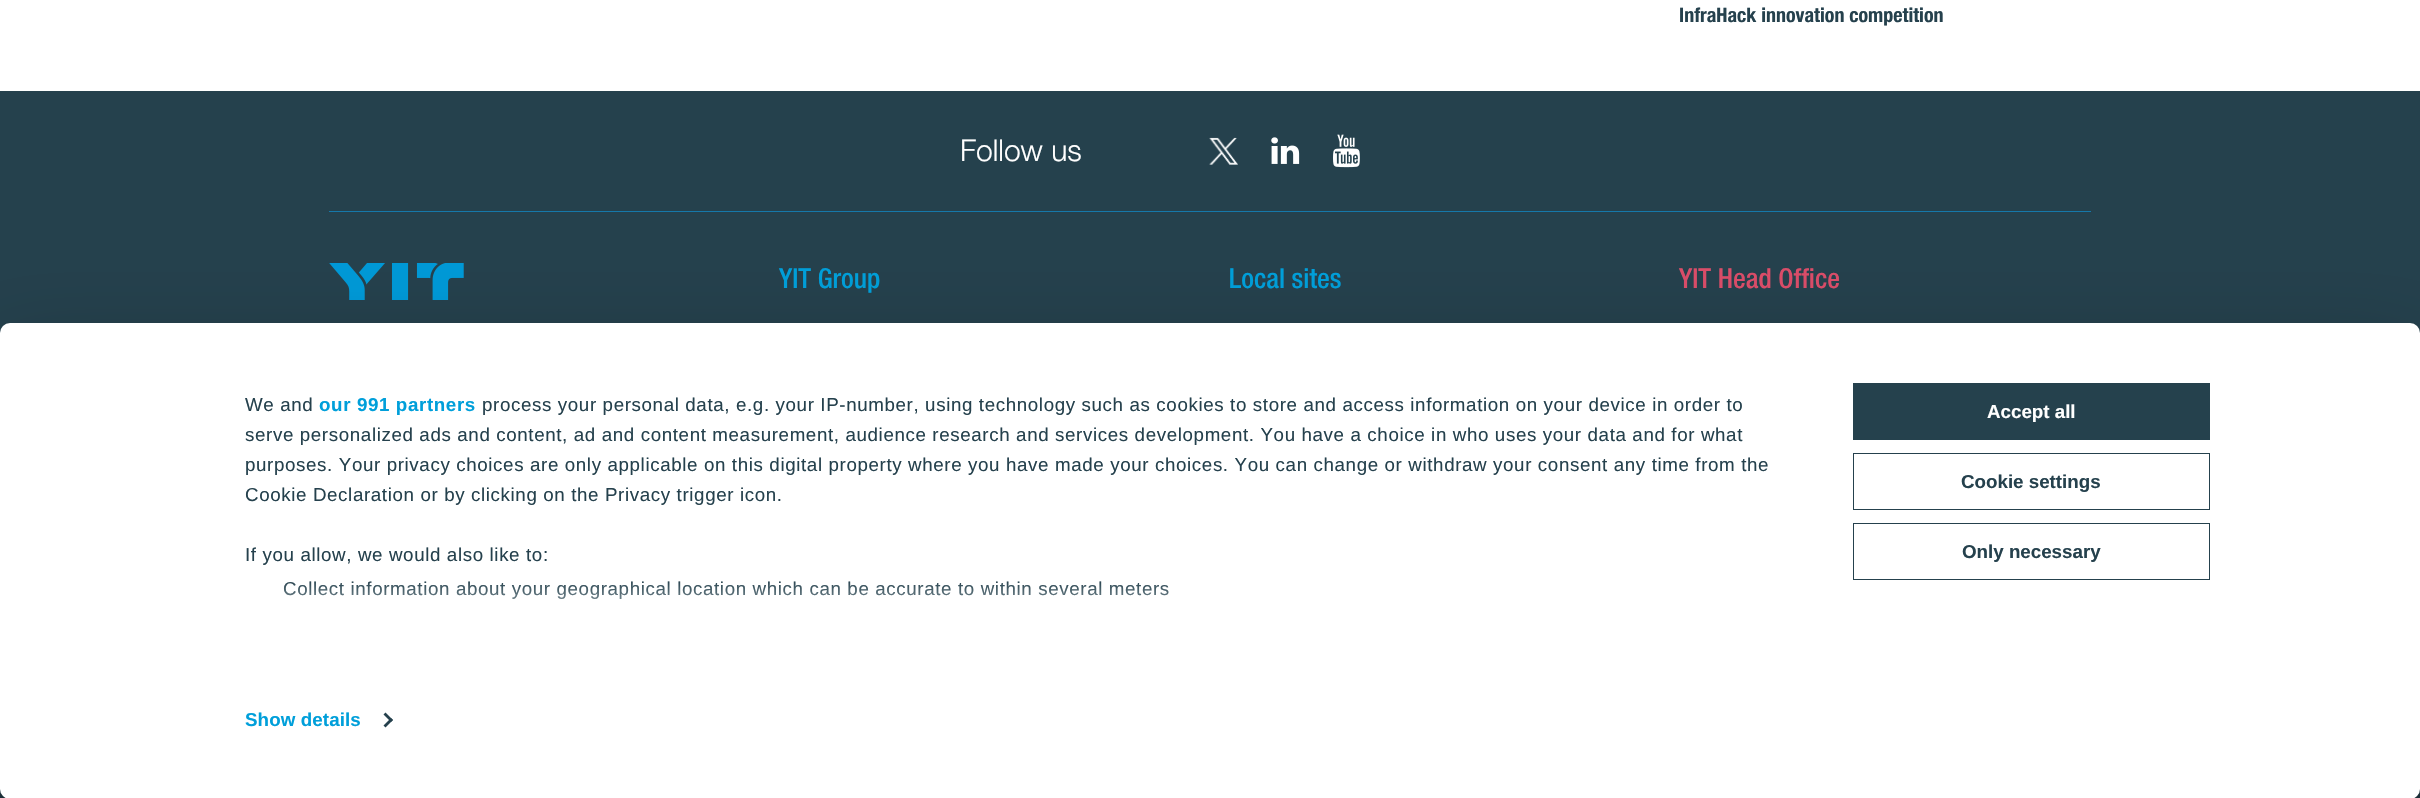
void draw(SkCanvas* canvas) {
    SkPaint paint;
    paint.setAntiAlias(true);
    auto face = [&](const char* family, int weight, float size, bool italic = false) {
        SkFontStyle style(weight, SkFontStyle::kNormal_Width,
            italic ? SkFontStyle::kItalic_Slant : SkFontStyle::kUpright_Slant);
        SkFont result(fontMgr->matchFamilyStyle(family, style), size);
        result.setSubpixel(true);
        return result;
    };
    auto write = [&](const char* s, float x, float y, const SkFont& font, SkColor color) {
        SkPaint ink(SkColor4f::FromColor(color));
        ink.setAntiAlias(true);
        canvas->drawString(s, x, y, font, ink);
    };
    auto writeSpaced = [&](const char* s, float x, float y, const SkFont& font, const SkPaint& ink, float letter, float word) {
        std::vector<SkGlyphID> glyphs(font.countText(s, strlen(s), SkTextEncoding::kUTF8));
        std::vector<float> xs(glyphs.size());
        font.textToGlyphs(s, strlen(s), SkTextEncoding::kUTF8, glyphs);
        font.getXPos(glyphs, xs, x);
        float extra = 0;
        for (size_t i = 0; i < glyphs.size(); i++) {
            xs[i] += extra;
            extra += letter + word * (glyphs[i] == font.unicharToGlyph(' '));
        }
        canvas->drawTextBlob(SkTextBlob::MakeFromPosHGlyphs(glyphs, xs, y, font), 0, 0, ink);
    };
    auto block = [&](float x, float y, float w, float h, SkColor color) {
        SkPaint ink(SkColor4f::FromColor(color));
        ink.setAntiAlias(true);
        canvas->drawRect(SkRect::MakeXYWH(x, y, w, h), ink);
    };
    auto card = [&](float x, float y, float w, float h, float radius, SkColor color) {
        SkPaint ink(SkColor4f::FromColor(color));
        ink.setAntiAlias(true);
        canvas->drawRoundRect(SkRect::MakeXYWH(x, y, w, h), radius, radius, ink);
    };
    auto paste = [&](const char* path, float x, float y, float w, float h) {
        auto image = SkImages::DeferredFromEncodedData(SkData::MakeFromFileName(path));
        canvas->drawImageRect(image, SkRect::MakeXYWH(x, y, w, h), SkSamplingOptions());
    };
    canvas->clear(SK_ColorWHITE);
    auto kFont1 = face("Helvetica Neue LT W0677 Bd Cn", 700, 20);
    write("InfraHack innovation competition", 1679, 22, kFont1, SkColorSetRGB(37, 65, 77));
    block(0, 91, 2420, 242, SkColorSetRGB(37, 65, 77));
    block(329, 211, 1762, 1, SkColorSetRGB(21, 120, 170));
    auto kFont2 = face("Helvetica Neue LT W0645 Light", 300, 30);
    write("Follow us", 960, 161, kFont2, SK_ColorWHITE);
    paste("pic1.png", 1209, 137, 29, 28);
    paste("pic2.png", 1271, 137, 29, 27);
    paste("pic3.png", 1333, 134, 27, 34);
    paste("pic4.png", 329, 263, 135, 37);
    auto kFont3 = face("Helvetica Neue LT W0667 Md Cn", 500, 27.5f);
    write("YIT Group", 779, 288, kFont3, SkColorSetRGB(0, 159, 218));
    write("Local sites", 1229, 288, kFont3, SkColorSetRGB(0, 159, 218));
    write("YIT Head Office", 1679, 288, kFont3, SkColorSetRGB(219, 77, 105));
    block(0, 789, 2420, 9, SkColorSetRGB(31, 54, 64));
    paint.setColor(SkColorSetARGB(77, 0, 0, 0));
    paint.setMaskFilter(SkMaskFilter::MakeBlur(kNormal_SkBlurStyle, 44));
    canvas->drawRoundRect(SkRect::MakeXYWH(0, 360, 2420, 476), 10, 10, paint);
    paint.setMaskFilter(nullptr);
    card(0, 323, 2420, 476, 10, SK_ColorWHITE);
    auto kFont4 = face("Liberation Sans", 400, 18.75f);
    paint.setColor(SkColorSetRGB(37, 65, 77));
    writeSpaced("We and", 245, 411, kFont4, paint, 0.62f, 0);
    auto kFont5 = face("Liberation Sans", 700, 18.75f);
    paint.setColor(SkColorSetRGB(0, 159, 218));
    writeSpaced("our 991 partners", 319, 411, kFont5, paint, 0.62f, 0);
    paint.setColor(SkColorSetRGB(37, 65, 77));
    writeSpaced("process your personal data, e.g. your IP-number, using technology such as cookies to store and access information on your device in order to", 482, 411, kFont4, paint, 0.62f, 0);
    writeSpaced("serve personalized ads and content, ad and content measurement, audience research and services development. You have a choice in who uses your data and for what", 245, 441, kFont4, paint, 0.62f, 0);
    writeSpaced("purposes. Your privacy choices are only applicable on this digital property where you have made your choices. You can change or withdraw your consent any time from the", 245, 471, kFont4, paint, 0.62f, 0);
    writeSpaced("Cookie Declaration or by clicking on the Privacy trigger icon.", 245, 501, kFont4, paint, 0.62f, 0);
    writeSpaced("If you allow, we would also like to:", 245, 561, kFont4, paint, 0.62f, 0);
    writeSpaced("Collect information about your geographical location which can be accurate to within several meters", 283, 595, kFont4, paint, 0.62f, 0);
    {
        const SkColor colors[] = {SK_ColorWHITE, SkColorSetARGB(204, 255, 255, 255), SkColorSetARGB(0, 255, 255, 255)};
        const float stops[] = {0, 0.5f, 1};
        const SkPoint ends[] = {{1019, 674}, {1019, 580}};
        paint.setShader(SkGradientShader::MakeLinear(ends, colors, stops, 3, SkTileMode::kClamp));
        paint.setAlpha(255);
    }
    canvas->drawRect(SkRect::MakeXYWH(283, 581, 886, 18), paint);
    paint.setShader(nullptr);
    paint.setColor(SkColorSetRGB(0, 159, 218));
    writeSpaced("Show details", 245, 726, kFont5, paint, 0.1f, 0);
    paint.setColor(SkColorSetRGB(37, 65, 77));
    canvas->drawPath(SkPathBuilder().moveTo(385.5f, 712.5f).lineTo(393, 720).lineTo(391, 722).lineTo(383.5f, 714.5f).close().detach(), paint);
    canvas->drawPath(SkPathBuilder().moveTo(391, 718).lineTo(393, 720).lineTo(385.5f, 727.5f).lineTo(383.5f, 725.5f).close().detach(), paint);
    block(1853, 383, 357, 57, SkColorSetRGB(37, 65, 77));
    write("Accept all", 1987, 418, kFont5, SK_ColorWHITE);
    paint.setStyle(SkPaint::kStroke_Style);
    paint.setStrokeWidth(1);
    canvas->drawRect(SkRect::MakeXYWH(1853.5f, 453.5f, 356, 56), paint);
    write("Cookie settings", 1961, 488, kFont5, SkColorSetRGB(37, 65, 77));
    canvas->drawRect(SkRect::MakeXYWH(1853.5f, 523.5f, 356, 56), paint);
    write("Only necessary", 1962, 558, kFont5, SkColorSetRGB(37, 65, 77));
}
